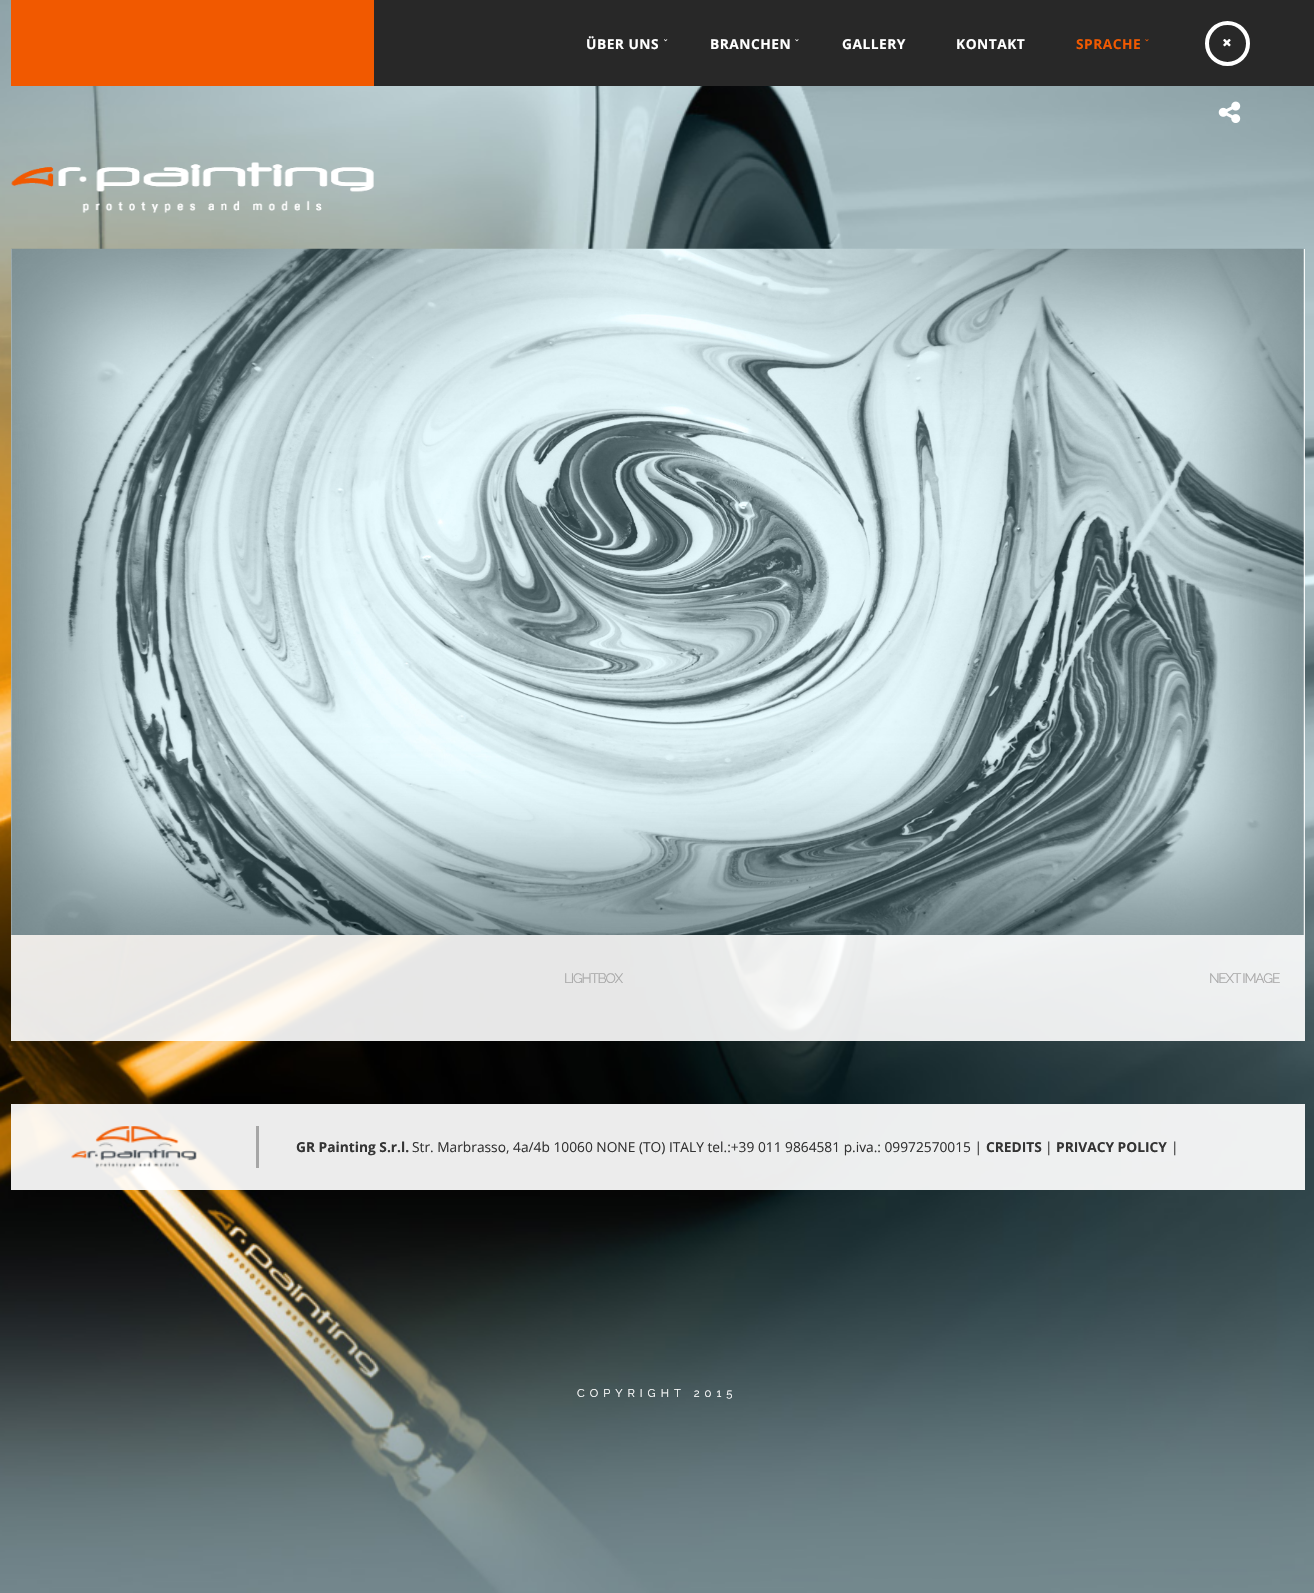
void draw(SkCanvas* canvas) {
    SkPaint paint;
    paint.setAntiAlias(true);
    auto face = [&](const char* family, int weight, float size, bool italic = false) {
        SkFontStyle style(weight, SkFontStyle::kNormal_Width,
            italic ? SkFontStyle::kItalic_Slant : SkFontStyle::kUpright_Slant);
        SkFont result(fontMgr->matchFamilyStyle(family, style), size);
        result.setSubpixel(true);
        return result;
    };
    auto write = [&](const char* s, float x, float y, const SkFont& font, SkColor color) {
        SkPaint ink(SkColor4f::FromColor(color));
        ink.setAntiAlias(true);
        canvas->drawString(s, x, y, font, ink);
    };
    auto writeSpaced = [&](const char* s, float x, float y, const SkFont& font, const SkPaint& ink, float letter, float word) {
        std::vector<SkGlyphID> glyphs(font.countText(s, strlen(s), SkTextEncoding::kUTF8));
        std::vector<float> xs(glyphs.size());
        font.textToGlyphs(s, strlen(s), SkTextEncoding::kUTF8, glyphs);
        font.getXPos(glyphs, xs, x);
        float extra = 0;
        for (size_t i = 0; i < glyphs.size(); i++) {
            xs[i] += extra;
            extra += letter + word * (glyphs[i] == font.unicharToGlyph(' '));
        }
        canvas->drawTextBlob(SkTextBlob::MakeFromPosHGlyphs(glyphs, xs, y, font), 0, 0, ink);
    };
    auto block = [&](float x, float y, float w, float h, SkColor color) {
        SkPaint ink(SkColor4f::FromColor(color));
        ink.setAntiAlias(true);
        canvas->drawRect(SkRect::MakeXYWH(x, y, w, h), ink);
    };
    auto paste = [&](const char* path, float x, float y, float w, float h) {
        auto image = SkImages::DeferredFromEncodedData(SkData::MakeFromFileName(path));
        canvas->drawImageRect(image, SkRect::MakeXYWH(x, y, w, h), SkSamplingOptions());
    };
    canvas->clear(SK_ColorWHITE);
    paste("pic1.png", 0, 0, 1314, 1593);
    block(11, 0, 363, 86, SkColorSetRGB(241, 89, 0));
    block(374, 0, 940, 86, SkColorSetRGB(40, 40, 40));
    auto kFont1 = face("Open Sans", 700, 13.75f);
    paint.setColor(SK_ColorWHITE);
    writeSpaced("ÜBER UNS", 586, 49, kFont1, paint, 0.5f, 0);
    paste("pic2.png", 664, 39, 4, 3);
    writeSpaced("BRANCHEN", 710, 49, kFont1, paint, 0.5f, 0);
    paste("pic3.png", 795, 39, 4, 3);
    writeSpaced("GALLERY", 842, 49, kFont1, paint, 0.5f, 0);
    writeSpaced("KONTAKT", 956, 49, kFont1, paint, 0.5f, 0);
    paint.setColor(SkColorSetRGB(241, 89, 0));
    writeSpaced("SPRACHE", 1076, 49, kFont1, paint, 0.5f, 0);
    paste("pic4.png", 1145, 39, 4, 3);
    paint.setStyle(SkPaint::kStroke_Style);
    paint.setStrokeWidth(4);
    paint.setColor(SK_ColorWHITE);
    canvas->drawCircle(1227.5f, 43.5f, 20.5f, paint);
    paste("pic5.png", 1223, 39, 8, 8);
    paste("pic6.png", 1218, 101, 23, 22);
    paste("pic7.png", 11, 162, 363, 51);
    block(11, 249, 1294, 792, SkColorSetARGB(230, 255, 255, 255));
    paste("pic8.png", 11, 248, 1293, 687);
    auto kFont2 = face("Raleway", 400, 13.75f);
    paint.setStyle(SkPaint::kFill_Style);
    paint.setColor(SkColorSetRGB(170, 170, 170));
    writeSpaced("LIGHTBOX", 564, 983, kFont2, paint, -1.25f, 0);
    writeSpaced("NEXT IMAGE", 1209, 983, kFont2, paint, -1.25f, 0);
    block(11, 1104, 1294, 86, SkColorSetARGB(235, 255, 255, 255));
    block(256, 1126, 3, 42, SkColorSetRGB(166, 166, 166));
    paste("pic9.png", 71, 1126, 126, 42);
    write("GR Painting S.r.l.", 296, 1152, kFont1, SkColorSetRGB(52, 52, 52));
    auto kFont3 = face("Open Sans", 400, 13.75f);
    write("Str. Marbrasso, 4a/4b 10060 NONE (TO) ITALY tel.:+39 011 9864581 p.iva.: 09972570015 |", 412, 1152, kFont3, SkColorSetRGB(52, 52, 52));
    write("CREDITS", 986, 1152, kFont1, SkColorSetRGB(52, 52, 52));
    write("|", 1045, 1152, kFont3, SkColorSetRGB(52, 52, 52));
    write("PRIVACY POLICY", 1056, 1152, kFont1, SkColorSetRGB(52, 52, 52));
    write("|", 1171, 1152, kFont3, SkColorSetRGB(52, 52, 52));
    auto kFont4 = face("Raleway", 400, 11.25f);
    paint.setColor(SK_ColorWHITE);
    writeSpaced("COPYRIGHT 2015", 577, 1397, kFont4, paint, 5, 0);
}
